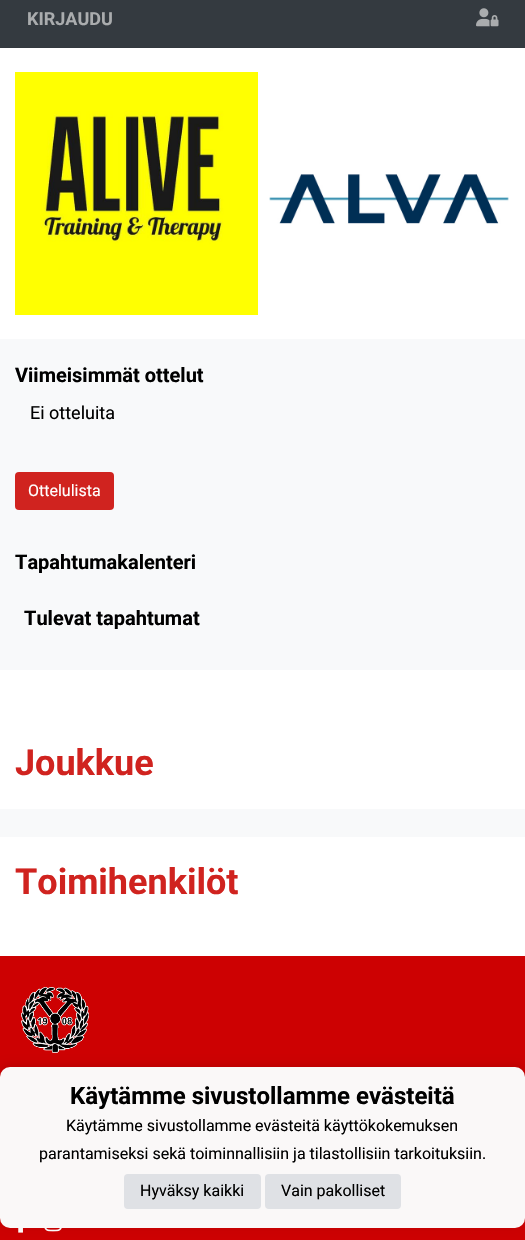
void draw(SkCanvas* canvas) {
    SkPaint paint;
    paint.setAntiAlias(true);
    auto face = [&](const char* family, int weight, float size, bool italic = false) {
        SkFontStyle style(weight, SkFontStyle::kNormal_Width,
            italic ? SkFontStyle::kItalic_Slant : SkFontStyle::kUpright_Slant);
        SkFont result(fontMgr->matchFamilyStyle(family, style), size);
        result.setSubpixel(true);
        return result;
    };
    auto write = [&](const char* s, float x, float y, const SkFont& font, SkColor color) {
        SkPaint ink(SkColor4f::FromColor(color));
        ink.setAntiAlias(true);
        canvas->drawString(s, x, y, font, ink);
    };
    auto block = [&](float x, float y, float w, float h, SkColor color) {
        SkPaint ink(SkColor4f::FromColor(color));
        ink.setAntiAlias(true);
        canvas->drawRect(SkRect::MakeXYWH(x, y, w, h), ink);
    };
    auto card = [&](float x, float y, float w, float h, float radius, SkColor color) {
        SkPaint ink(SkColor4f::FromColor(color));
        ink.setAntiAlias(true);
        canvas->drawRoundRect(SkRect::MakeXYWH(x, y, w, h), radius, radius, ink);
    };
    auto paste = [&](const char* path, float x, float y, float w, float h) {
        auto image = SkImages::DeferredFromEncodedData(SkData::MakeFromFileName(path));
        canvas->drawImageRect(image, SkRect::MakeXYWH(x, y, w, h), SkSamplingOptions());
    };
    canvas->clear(SK_ColorWHITE);
    block(0, 0, 525, 47, SkColorSetRGB(52, 58, 64));
    block(0, 47, 525, 1, SkColorSetRGB(50, 56, 62));
    auto kFont1 = face("Roboto", 700, 18);
    write("KIRJAUDU", 27, 25, kFont1, SkColorSetRGB(170, 172, 174));
    paste("pic1.png", 476, 8, 23, 19);
    paste("pic2.png", 15, 72, 243, 243);
    paste("pic3.png", 269, 174, 240, 50);
    block(0, 339, 525, 331, SkColorSetRGB(248, 249, 250));
    auto kFont2 = face("Roboto", 700, 20);
    write("Viimeisimmät ottelut", 15, 382, kFont2, SK_ColorBLACK);
    auto kFont3 = face("Roboto", 400, 18);
    write("Ei otteluita", 30, 419, kFont3, SK_ColorBLACK);
    card(15, 472, 99, 38, 4, SkColorSetRGB(208, 35, 31));
    auto kFont4 = face("Roboto", 400, 16);
    write("Ottelulista", 28, 496, kFont4, SK_ColorWHITE);
    write("Tapahtumakalenteri", 15, 569, kFont2, SK_ColorBLACK);
    write("Tulevat tapahtumat", 24, 625, kFont2, SK_ColorBLACK);
    auto kFont5 = face("Roboto", 700, 36);
    write("Joukkue", 15, 775, kFont5, SkColorSetRGB(208, 35, 31));
    block(0, 809, 525, 28, SkColorSetRGB(248, 249, 250));
    write("Toimihenkilöt", 15, 894, kFont5, SkColorSetRGB(208, 35, 31));
    block(0, 956, 525, 284, SkColorSetRGB(205, 1, 2));
    paste("pic4.png", 21, 987, 68, 66);
    paste("pic5.png", 18, 1228, 5, 5);
    paste("pic6.png", 44, 1228, 18, 4);
    paint.setColor(SkColorSetARGB(26, 0, 0, 0));
    paint.setMaskFilter(SkMaskFilter::MakeBlur(kNormal_SkBlurStyle, 5));
    canvas->drawRoundRect(SkRect::MakeXYWH(0, 1065, 525, 161), 10, 10, paint);
    paint.setMaskFilter(nullptr);
    card(0, 1067, 525, 161, 10, SkColorSetRGB(250, 248, 248));
    auto kFont6 = face("Roboto", 700, 24);
    write("Käytämme sivustollamme evästeitä", 70, 1104, kFont6, SK_ColorBLACK);
    write("Käytämme sivustollamme evästeitä käyttökokemuksen", 66, 1131, kFont4, SK_ColorBLACK);
    write("parantamiseksi sekä toiminnallisiin ja tilastollisiin tarkoituksiin.", 39, 1159, kFont4, SK_ColorBLACK);
    card(124, 1174, 137, 35, 4, SkColorSetRGB(223, 225, 229));
    write("Hyväksy kaikki", 140, 1196, kFont4, SK_ColorBLACK);
    card(265, 1174, 136, 35, 4, SkColorSetRGB(223, 225, 229));
    write("Vain pakolliset", 281, 1196, kFont4, SK_ColorBLACK);
}
